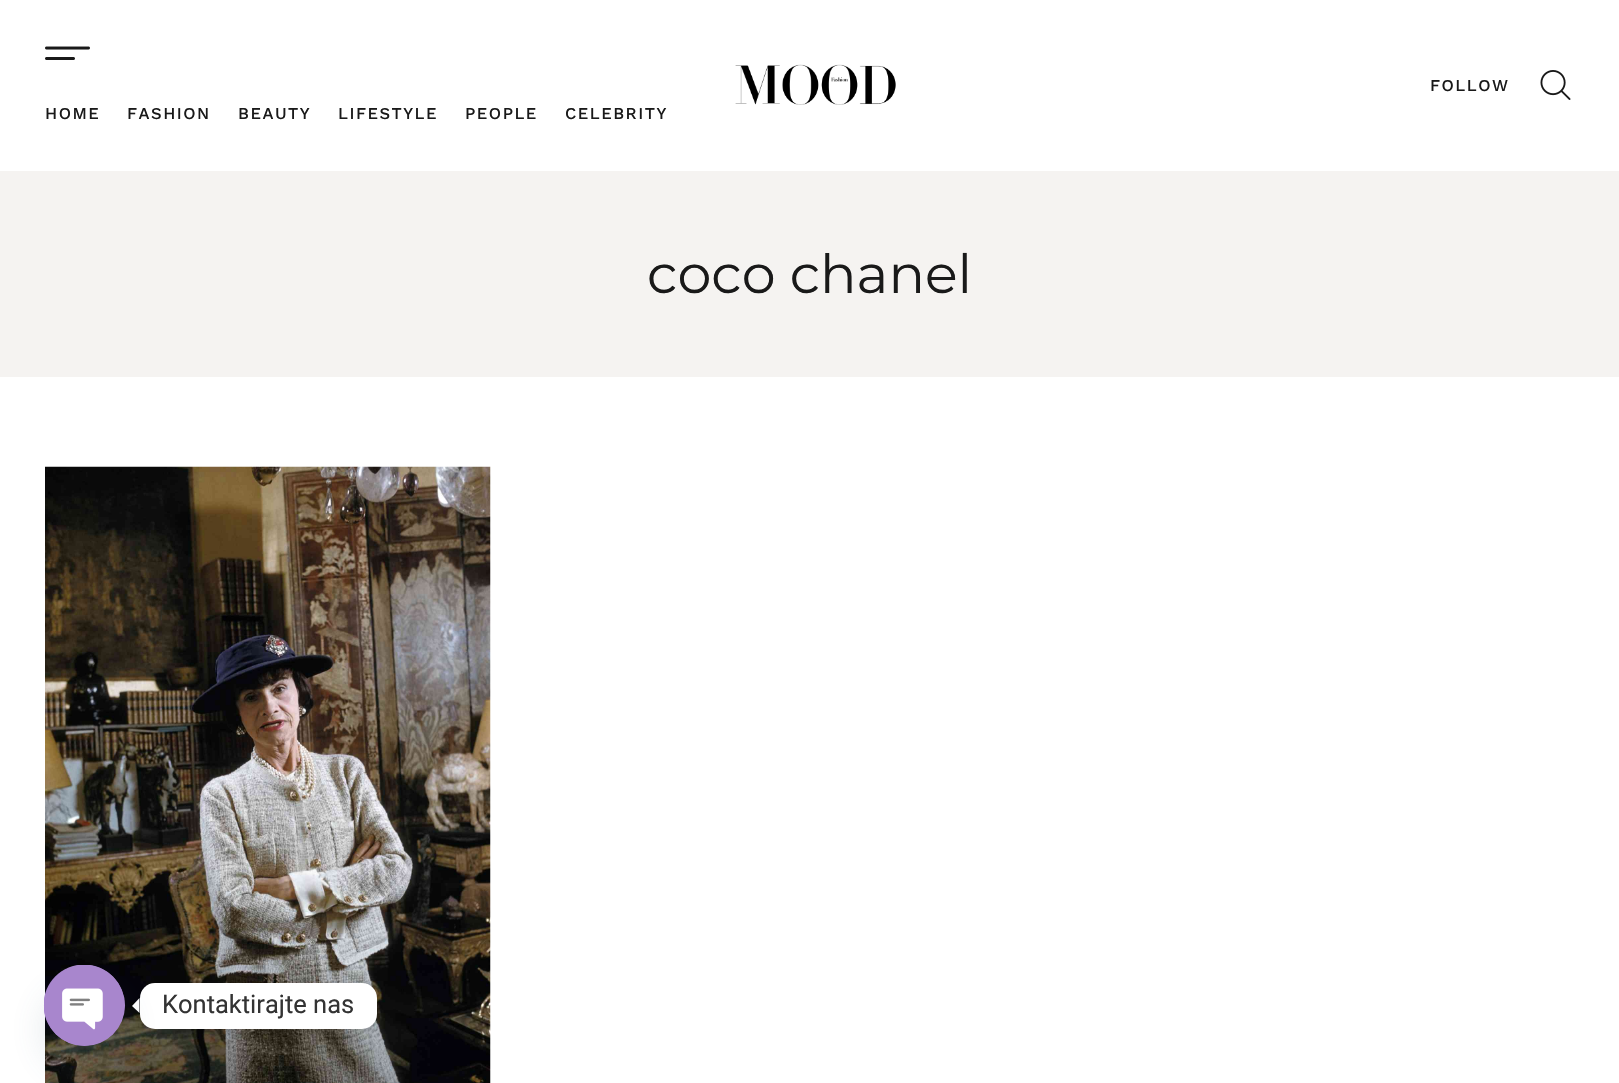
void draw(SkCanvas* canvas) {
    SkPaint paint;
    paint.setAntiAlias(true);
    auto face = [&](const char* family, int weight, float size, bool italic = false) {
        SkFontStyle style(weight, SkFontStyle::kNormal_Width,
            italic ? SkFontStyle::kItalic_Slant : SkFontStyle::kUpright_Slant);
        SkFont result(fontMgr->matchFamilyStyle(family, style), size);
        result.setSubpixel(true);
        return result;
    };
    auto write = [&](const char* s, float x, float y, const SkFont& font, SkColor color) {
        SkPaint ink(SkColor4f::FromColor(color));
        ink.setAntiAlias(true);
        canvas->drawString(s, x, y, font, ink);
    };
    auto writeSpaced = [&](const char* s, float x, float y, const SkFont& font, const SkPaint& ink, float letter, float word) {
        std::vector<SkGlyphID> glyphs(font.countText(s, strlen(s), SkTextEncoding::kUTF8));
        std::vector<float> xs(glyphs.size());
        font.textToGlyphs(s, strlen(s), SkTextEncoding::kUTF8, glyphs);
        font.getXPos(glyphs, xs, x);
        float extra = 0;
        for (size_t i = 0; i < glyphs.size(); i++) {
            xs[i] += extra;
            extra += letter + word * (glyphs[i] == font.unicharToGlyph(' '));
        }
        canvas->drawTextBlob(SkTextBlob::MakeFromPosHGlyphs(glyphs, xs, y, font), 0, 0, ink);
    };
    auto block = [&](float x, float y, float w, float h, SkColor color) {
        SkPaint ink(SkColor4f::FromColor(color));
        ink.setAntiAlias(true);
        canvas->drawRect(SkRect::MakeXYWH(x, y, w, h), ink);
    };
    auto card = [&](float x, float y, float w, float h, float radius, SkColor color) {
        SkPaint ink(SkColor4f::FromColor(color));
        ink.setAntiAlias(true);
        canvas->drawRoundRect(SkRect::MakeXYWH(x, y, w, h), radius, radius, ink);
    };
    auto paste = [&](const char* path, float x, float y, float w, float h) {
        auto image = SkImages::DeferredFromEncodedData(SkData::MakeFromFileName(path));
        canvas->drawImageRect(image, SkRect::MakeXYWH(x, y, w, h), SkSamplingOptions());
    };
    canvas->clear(SK_ColorWHITE);
    paste("pic1.png", 735, 64, 161, 41);
    auto kFont1 = face("Work Sans", 500, 16.5f);
    paint.setColor(SkColorSetRGB(25, 25, 25));
    writeSpaced("FOLLOW", 1430, 91, kFont1, paint, 1.5f, 0);
    paste("pic2.png", 1540, 70, 31, 30);
    paste("pic3.png", 45, 46, 45, 14);
    writeSpaced("HOME", 45, 119, kFont1, paint, 1.5f, 0);
    writeSpaced("FASHION", 127, 119, kFont1, paint, 1.5f, 0);
    writeSpaced("BEAUTY", 238, 119, kFont1, paint, 1.5f, 0);
    writeSpaced("LIFESTYLE", 338, 119, kFont1, paint, 1.5f, 0);
    writeSpaced("PEOPLE", 465, 119, kFont1, paint, 1.5f, 0);
    writeSpaced("CELEBRITY", 565, 119, kFont1, paint, 1.5f, 0);
    block(0, 171, 1619, 206, SkColorSetRGB(245, 243, 241));
    auto kFont2 = face("Montserrat", 400, 54);
    write("coco chanel", 647, 293, kFont2, SkColorSetRGB(25, 25, 25));
    paste("pic4.png", 45, 466, 446, 617);
    paint.setColor(SkColorSetARGB(38, 0, 0, 0));
    paint.setMaskFilter(SkMaskFilter::MakeBlur(kNormal_SkBlurStyle, 6));
    canvas->drawRoundRect(SkRect::MakeXYWH(140, 984, 237, 47), 15, 15, paint);
    paint.setMaskFilter(nullptr);
    card(140, 983, 237, 46, 15, SK_ColorWHITE);
    paint.setColor(SK_ColorWHITE);
    canvas->drawPath(SkPathBuilder().moveTo(139.5f, 998).lineTo(139.5f, 1013).lineTo(132, 1006).close().detach(), paint);
    paint.setColor(SkColorSetARGB(41, 73, 104, 126));
    paint.setMaskFilter(SkMaskFilter::MakeBlur(kNormal_SkBlurStyle, 18));
    canvas->drawRoundRect(SkRect::MakeXYWH(44, 989, 81, 81), 40.5f, 40.5f, paint);
    paint.setMaskFilter(nullptr);
    paint.setColor(SkColorSetRGB(168, 134, 205));
    canvas->drawCircle(84.5f, 1005.5f, 40.5f, paint);
    paste("pic5.png", 44, 965, 81, 81);
    auto kFont3 = face("Roboto", 400, 25.5f);
    write("Kontaktirajte nas", 162, 1013, kFont3, SkColorSetRGB(51, 51, 51));
}
